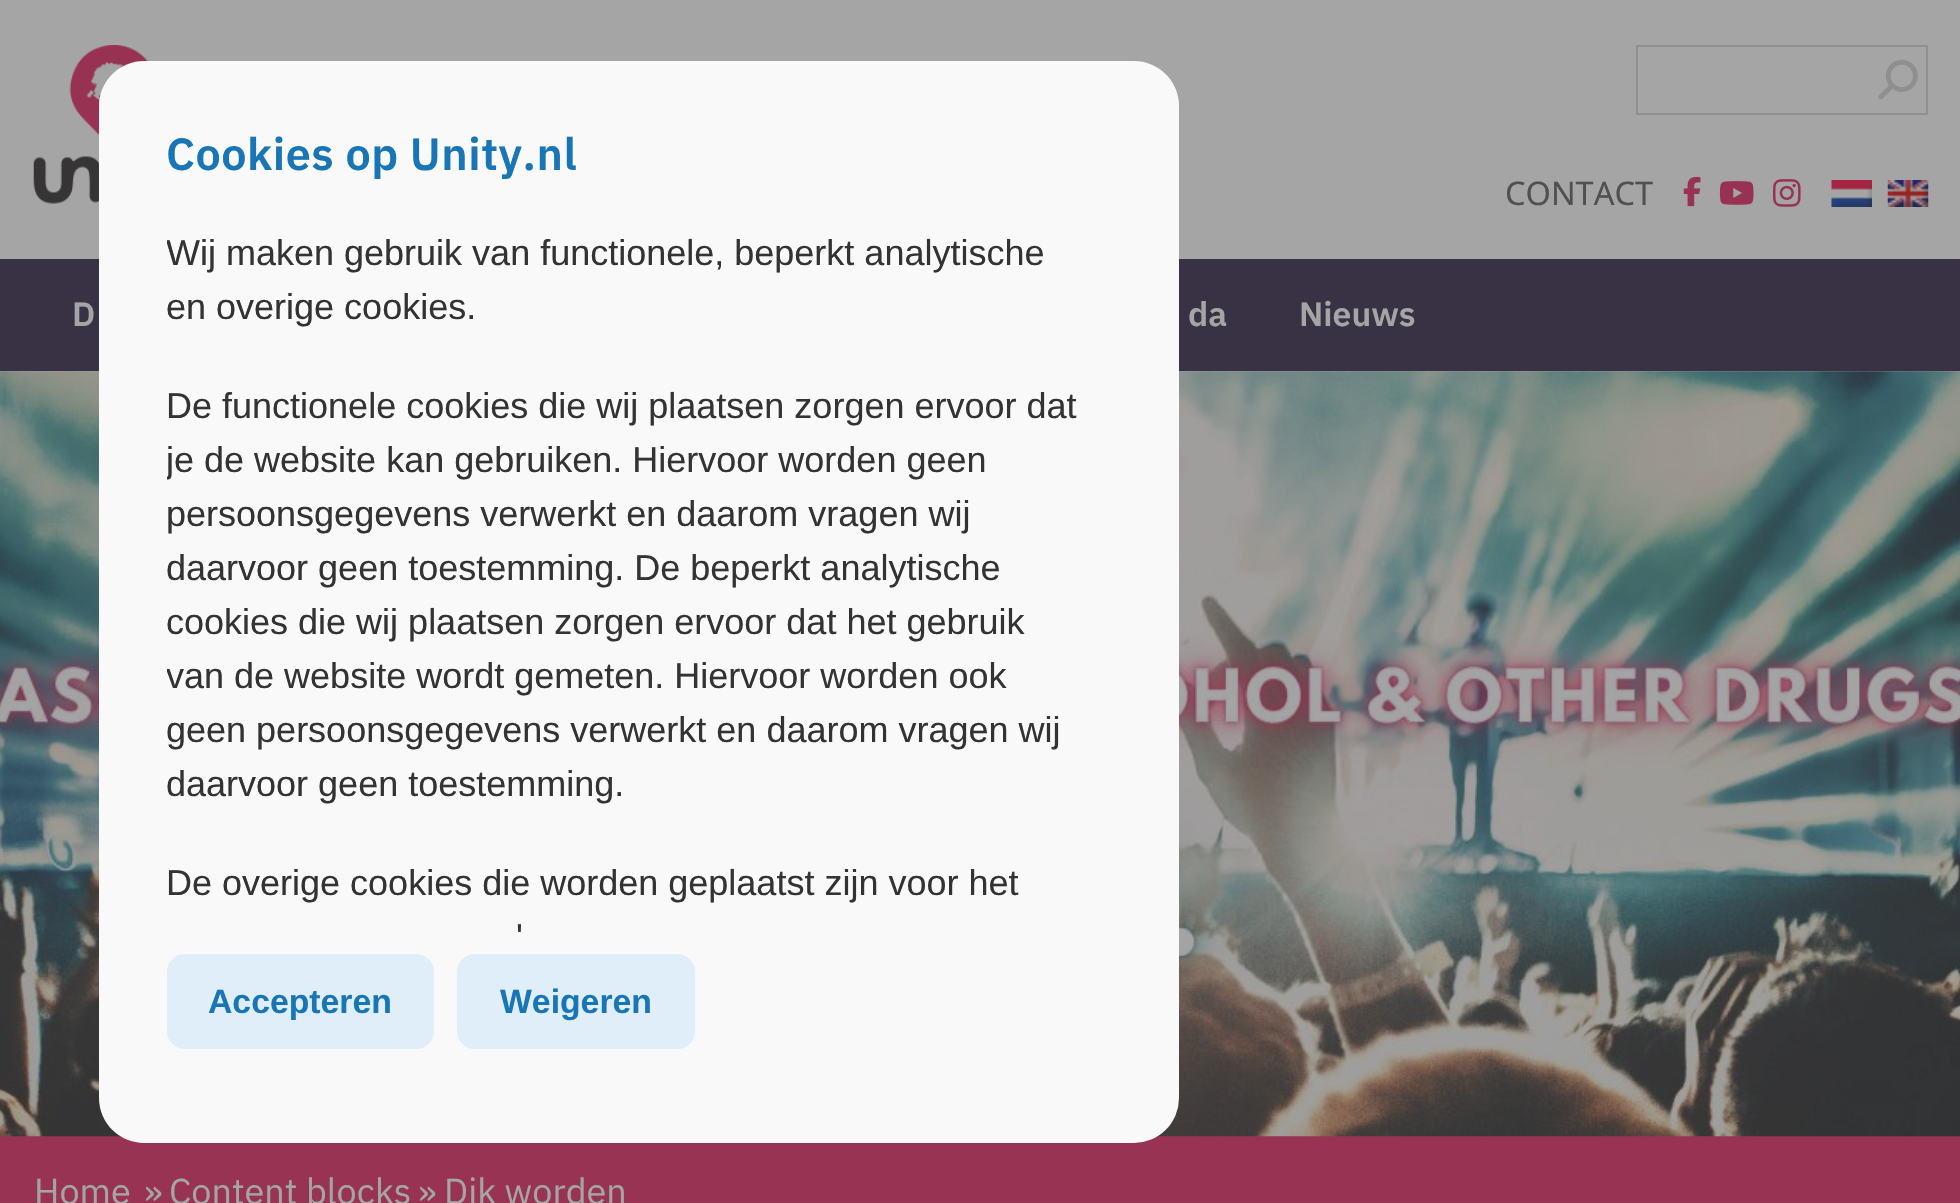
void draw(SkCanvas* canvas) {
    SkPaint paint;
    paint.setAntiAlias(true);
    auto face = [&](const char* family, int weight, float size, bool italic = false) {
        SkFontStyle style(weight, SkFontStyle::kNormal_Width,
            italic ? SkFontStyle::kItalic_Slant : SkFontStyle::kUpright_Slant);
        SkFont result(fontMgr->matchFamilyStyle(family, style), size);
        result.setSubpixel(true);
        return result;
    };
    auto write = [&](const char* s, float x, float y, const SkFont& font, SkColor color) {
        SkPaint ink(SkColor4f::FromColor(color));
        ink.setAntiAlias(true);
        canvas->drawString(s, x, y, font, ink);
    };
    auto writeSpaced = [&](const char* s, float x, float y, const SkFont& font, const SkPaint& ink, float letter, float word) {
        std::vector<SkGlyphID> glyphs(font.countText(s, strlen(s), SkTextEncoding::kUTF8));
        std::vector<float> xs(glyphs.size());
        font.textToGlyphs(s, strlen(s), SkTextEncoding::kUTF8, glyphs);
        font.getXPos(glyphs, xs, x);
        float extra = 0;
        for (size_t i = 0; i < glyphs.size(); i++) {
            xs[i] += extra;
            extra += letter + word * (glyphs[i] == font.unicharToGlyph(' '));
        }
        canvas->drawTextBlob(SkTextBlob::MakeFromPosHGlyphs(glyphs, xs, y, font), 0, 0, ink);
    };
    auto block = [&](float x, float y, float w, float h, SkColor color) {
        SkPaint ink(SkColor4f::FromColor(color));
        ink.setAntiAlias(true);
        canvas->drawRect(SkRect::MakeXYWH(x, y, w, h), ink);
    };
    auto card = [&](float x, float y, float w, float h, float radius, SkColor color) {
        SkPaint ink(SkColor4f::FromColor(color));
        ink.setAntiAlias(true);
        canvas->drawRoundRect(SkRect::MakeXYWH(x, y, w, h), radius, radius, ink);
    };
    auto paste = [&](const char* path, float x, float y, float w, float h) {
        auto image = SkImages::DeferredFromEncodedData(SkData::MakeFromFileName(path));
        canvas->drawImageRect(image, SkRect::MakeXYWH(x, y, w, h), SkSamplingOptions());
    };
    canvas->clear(SkColorSetRGB(165, 165, 165));
    paste("pic1.png", 33, 45, 115, 159);
    block(0, 259, 1960, 112, SkColorSetRGB(56, 50, 68));
    block(0, 1136, 1960, 67, SkColorSetRGB(152, 51, 83));
    paste("pic8.png", 0, 371, 1960, 766);
    card(99, 61, 1080, 1082, 45, SkColorSetRGB(249, 249, 249));
    auto kFont1 = face("IBM Plex Sans", 600, 45);
    paint.setColor(SkColorSetRGB(24, 118, 182));
    writeSpaced("Cookies op Unity.nl", 166, 170, kFont1, paint, 0.5f, 0);
    canvas->save();
    canvas->clipRect(SkRect::MakeXYWH(167, 128, 945, 813));
    auto kFont2 = face("Liberation Sans", 400, 36);
    write("Wij maken gebruik van functionele, beperkt analytische", 166, 265, kFont2, SkColorSetRGB(51, 51, 51));
    canvas->restore();
    write("en overige cookies.", 166, 319, kFont2, SkColorSetRGB(51, 51, 51));
    write("De functionele cookies die wij plaatsen zorgen ervoor dat", 166, 418, kFont2, SkColorSetRGB(51, 51, 51));
    canvas->save();
    canvas->clipRect(SkRect::MakeXYWH(167, 128, 945, 813));
    write("je de website kan gebruiken. Hiervoor worden geen", 166, 472, kFont2, SkColorSetRGB(51, 51, 51));
    canvas->restore();
    write("persoonsgegevens verwerkt en daarom vragen wij", 166, 526, kFont2, SkColorSetRGB(51, 51, 51));
    write("daarvoor geen toestemming. De beperkt analytische", 166, 580, kFont2, SkColorSetRGB(51, 51, 51));
    write("cookies die wij plaatsen zorgen ervoor dat het gebruik", 166, 634, kFont2, SkColorSetRGB(51, 51, 51));
    canvas->save();
    canvas->clipRect(SkRect::MakeXYWH(167, 128, 945, 813));
    write("van de website wordt gemeten. Hiervoor worden ook", 166, 688, kFont2, SkColorSetRGB(51, 51, 51));
    canvas->restore();
    write("geen persoonsgegevens verwerkt en daarom vragen wij", 166, 742, kFont2, SkColorSetRGB(51, 51, 51));
    write("daarvoor geen toestemming.", 166, 796, kFont2, SkColorSetRGB(51, 51, 51));
    write("De overige cookies die worden geplaatst zijn voor het", 166, 895, kFont2, SkColorSetRGB(51, 51, 51));
    write("'", 516, 949, kFont2, SkColorSetRGB(51, 51, 51));
    paint.setColor(SkColorSetRGB(223, 238, 248));
    canvas->drawRoundRect(SkRect::MakeXYWH(168, 955, 265, 93), 17, 17, paint);
    paint.setStyle(SkPaint::kStroke_Style);
    paint.setStrokeWidth(2);
    canvas->drawRoundRect(SkRect::MakeXYWH(168, 955, 265, 93), 17, 17, paint);
    auto kFont3 = face("Liberation Sans", 700, 33.75f);
    write("Accepteren", 208, 1013, kFont3, SkColorSetRGB(24, 118, 182));
    paint.setStyle(SkPaint::kFill_Style);
    canvas->drawRoundRect(SkRect::MakeXYWH(458, 955, 236, 93), 17, 17, paint);
    paint.setStyle(SkPaint::kStroke_Style);
    canvas->drawRoundRect(SkRect::MakeXYWH(458, 955, 236, 93), 17, 17, paint);
    write("Weigeren", 500, 1013, kFont3, SkColorSetRGB(24, 118, 182));
    paint.setColor(SkColorSetRGB(144, 144, 144));
    canvas->drawRect(SkRect::MakeXYWH(1637, 46, 290, 68), paint);
    paste("pic2.png", 1878, 59, 40, 41);
    auto kFont4 = face("Noto Sans", 400, 32.5f);
    write("CONTACT", 1505, 205, kFont4, SkColorSetRGB(80, 80, 80));
    paste("pic3.png", 1683, 176, 18, 31);
    paste("pic4.png", 1719, 181, 35, 24);
    paste("pic5.png", 1773, 179, 28, 28);
    paste("pic6.png", 1831, 180, 41, 27);
    paste("pic7.png", 1887, 180, 42, 27);
    auto kFont5 = face("IBM Plex Sans", 600, 33.75f);
    write("D", 72, 326, kFont5, SkColorSetRGB(165, 165, 165));
    write("da", 1188, 326, kFont5, SkColorSetRGB(165, 165, 165));
    write("Nieuws", 1299, 326, kFont5, SkColorSetRGB(165, 165, 165));
    auto kFont6 = face("IBM Plex Sans", 400, 36);
    write("Home", 34, 1204, kFont6, SkColorSetRGB(165, 165, 165));
    write("»", 144, 1204, kFont6, SkColorSetRGB(165, 165, 165));
    write("Content blocks", 169, 1204, kFont6, SkColorSetRGB(165, 165, 165));
    write("»", 418, 1204, kFont6, SkColorSetRGB(165, 165, 165));
    write("Dik worden", 444, 1204, kFont6, SkColorSetRGB(165, 165, 165));
}
